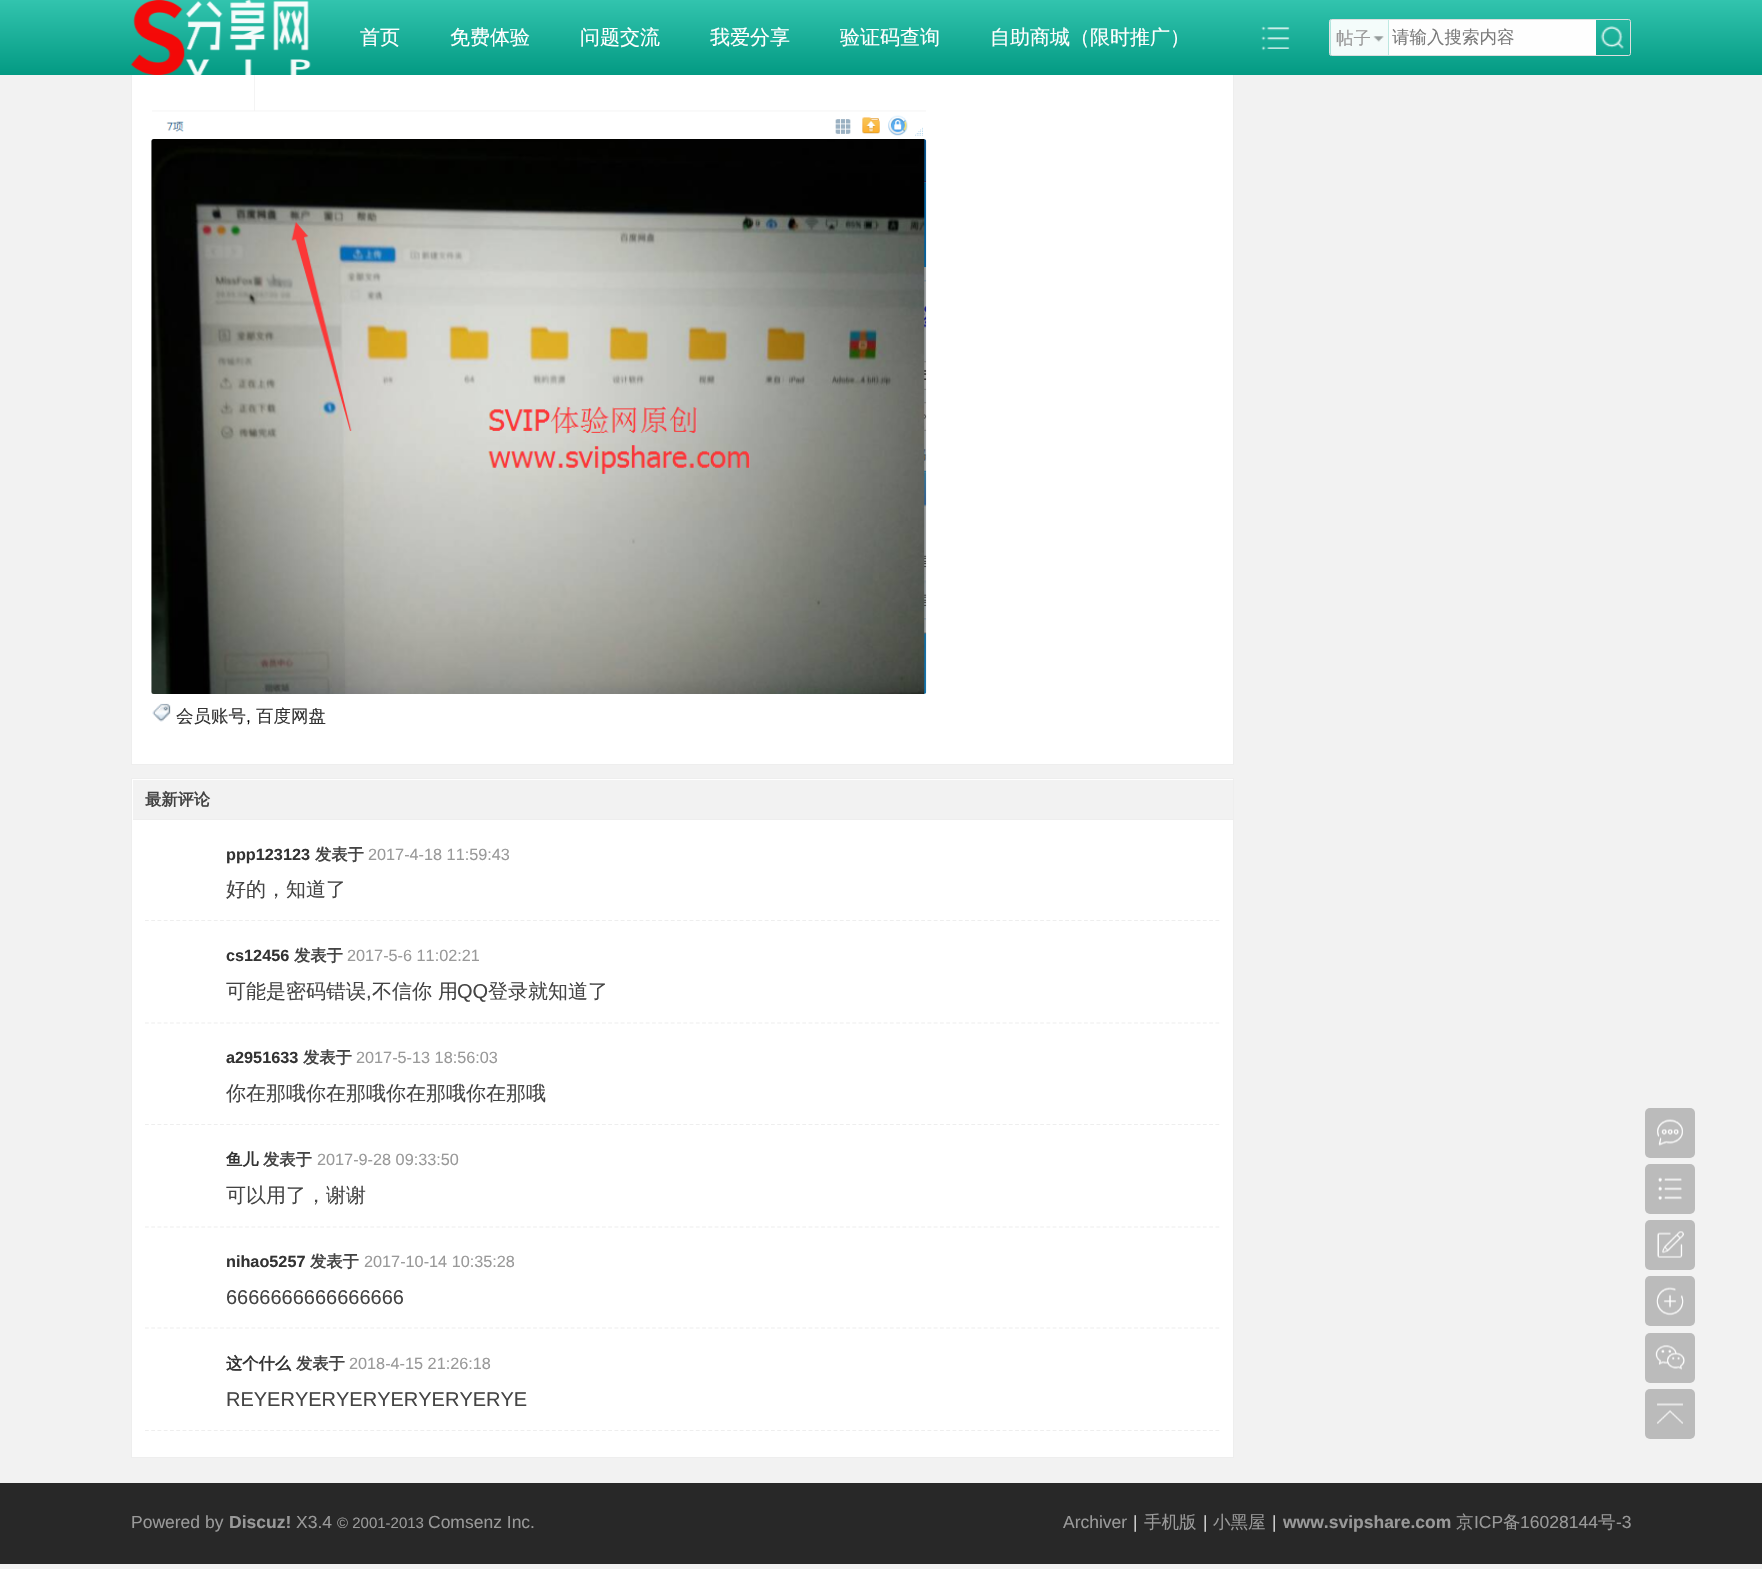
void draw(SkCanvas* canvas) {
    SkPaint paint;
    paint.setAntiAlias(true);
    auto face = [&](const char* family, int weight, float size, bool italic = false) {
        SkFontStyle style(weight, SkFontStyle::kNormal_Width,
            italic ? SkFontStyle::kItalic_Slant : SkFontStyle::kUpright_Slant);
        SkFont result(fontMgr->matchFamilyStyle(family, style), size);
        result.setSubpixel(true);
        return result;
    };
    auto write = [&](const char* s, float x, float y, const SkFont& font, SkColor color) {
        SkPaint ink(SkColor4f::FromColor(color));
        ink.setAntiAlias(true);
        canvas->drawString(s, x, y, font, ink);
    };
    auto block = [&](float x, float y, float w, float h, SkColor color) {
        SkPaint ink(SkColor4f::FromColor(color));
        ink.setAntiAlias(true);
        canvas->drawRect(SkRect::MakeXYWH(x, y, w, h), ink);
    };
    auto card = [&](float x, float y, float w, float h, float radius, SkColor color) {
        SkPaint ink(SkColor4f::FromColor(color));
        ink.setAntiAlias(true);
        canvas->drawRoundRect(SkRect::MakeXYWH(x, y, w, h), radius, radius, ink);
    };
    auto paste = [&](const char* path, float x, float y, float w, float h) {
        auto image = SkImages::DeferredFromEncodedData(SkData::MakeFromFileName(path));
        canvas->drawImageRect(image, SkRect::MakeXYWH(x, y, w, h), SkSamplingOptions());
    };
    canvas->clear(SkColorSetRGB(242, 242, 242));
    block(132, 75, 1101, 689, SK_ColorWHITE);
    paint.setStyle(SkPaint::kStroke_Style);
    paint.setStrokeWidth(1);
    paint.setColor(SkColorSetRGB(238, 238, 238));
    canvas->drawRect(SkRect::MakeXYWH(131.5f, -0.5f, 1102, 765), paint);
    paint.setStyle(SkPaint::kFill_Style);
    {
        const SkColor colors[] = {SkColorSetRGB(3, 154, 131), SkColorSetRGB(50, 196, 174)};
        const float stops[] = {0, 1};
        const SkPoint ends[] = {{881, 75}, {881, 0}};
        paint.setShader(SkGradientShader::MakeLinear(ends, colors, stops, 2, SkTileMode::kClamp));
        paint.setAlpha(255);
    }
    canvas->drawRect(SkRect::MakeXYWH(0, 0, 1762, 75), paint);
    paste("pic1.png", 131, 0, 180, 75);
    auto kFont1 = face("WenQuanYi Zen Hei", 500, 20);
    write("首页", 360, 44, kFont1, SK_ColorWHITE);
    write("免费体验", 450, 44, kFont1, SK_ColorWHITE);
    write("问题交流", 580, 44, kFont1, SK_ColorWHITE);
    write("我爱分享", 710, 44, kFont1, SK_ColorWHITE);
    write("验证码查询", 840, 44, kFont1, SK_ColorWHITE);
    write("自助商城（限时推广）", 990, 44, kFont1, SK_ColorWHITE);
    paste("pic2.png", 1261, 26, 29, 25);
    paint.setStyle(SkPaint::kStroke_Style);
    paint.setShader(nullptr);
    paint.setColor(SkColorSetRGB(222, 222, 222));
    canvas->drawRoundRect(SkRect::MakeXYWH(1329.5f, 19.5f, 301, 36), 2, 2, paint);
    paste("pic3.png", 1329, 20, 60, 35);
    auto kFont2 = face("WenQuanYi Zen Hei", 500, 17.5f);
    write("帖子", 1336, 44, kFont2, SkColorSetRGB(153, 153, 153));
    block(1389, 20, 207, 35, SkColorSetRGB(254, 254, 254));
    write("请输入搜索内容", 1392, 43, kFont2, SkColorSetRGB(123, 123, 123));
    paste("pic4.png", 1600, 26, 24, 23);
    paste("pic5.png", 152, 75, 774, 61);
    paste("pic6.png", 151, 139, 776, 555);
    paste("pic7.png", 152, 703, 19, 19);
    write("会员账号", 176, 722, kFont2, SkColorSetRGB(51, 51, 51));
    auto kFont3 = face("Liberation Sans", 400, 17.5f);
    write(",", 246, 722, kFont3, SK_ColorBLACK);
    write("百度网盘", 256, 722, kFont2, SkColorSetRGB(51, 51, 51));
    paint.setStyle(SkPaint::kFill_Style);
    paint.setColor(SK_ColorWHITE);
    canvas->drawRect(SkRect::MakeXYWH(131.5f, 778.5f, 1102, 679), paint);
    paint.setStyle(SkPaint::kStroke_Style);
    paint.setColor(SkColorSetRGB(238, 238, 238));
    canvas->drawRect(SkRect::MakeXYWH(131.5f, 778.5f, 1102, 679), paint);
    block(133, 780, 1100, 39, SkColorSetRGB(242, 242, 242));
    block(133, 819, 1100, 1, SkColorSetRGB(238, 238, 238));
    auto kFont4 = face("WenQuanYi Zen Hei", 700, 16.25f);
    write("最新评论", 145, 805, kFont4, SkColorSetRGB(68, 68, 68));
    paint.setStrokeWidth(1.2f);
    paint.setPathEffect(SkDashPathEffect::Make({{3.75f, 2.51f}}, 0));
    canvas->drawPath(SkPathBuilder().moveTo(145, 920.5f).lineTo(1220, 920.5f).detach(), paint);
    paint.setPathEffect(nullptr);
    auto kFont5 = face("Liberation Sans", 700, 16.25f);
    write("ppp123123", 226, 860, kFont5, SkColorSetRGB(51, 51, 51));
    write("发表于", 315, 860, kFont4, SkColorSetRGB(68, 68, 68));
    auto kFont6 = face("Liberation Sans", 400, 16.25f);
    write("2017-4-18 11:59:43", 368, 860, kFont6, SkColorSetRGB(153, 153, 153));
    write("好的，知道了", 226, 896, kFont1, SkColorSetRGB(68, 68, 68));
    paint.setPathEffect(SkDashPathEffect::Make({{3.75f, 2.51f}}, 0));
    canvas->drawPath(SkPathBuilder().moveTo(145, 1023).lineTo(1220, 1023).detach(), paint);
    paint.setPathEffect(nullptr);
    write("cs12456", 226, 961, kFont5, SkColorSetRGB(51, 51, 51));
    write("发表于", 294, 961, kFont4, SkColorSetRGB(68, 68, 68));
    write("2017-5-6 11:02:21", 347, 961, kFont6, SkColorSetRGB(153, 153, 153));
    write("可能是密码错误", 226, 998, kFont1, SkColorSetRGB(68, 68, 68));
    auto kFont7 = face("Liberation Sans", 400, 20);
    write(",", 366, 998, kFont7, SkColorSetRGB(68, 68, 68));
    write("不信你 用", 372, 998, kFont1, SkColorSetRGB(68, 68, 68));
    write("QQ", 457, 998, kFont7, SkColorSetRGB(68, 68, 68));
    write("登录就知道了", 488, 998, kFont1, SkColorSetRGB(68, 68, 68));
    paint.setPathEffect(SkDashPathEffect::Make({{3.75f, 2.51f}}, 0));
    canvas->drawPath(SkPathBuilder().moveTo(145, 1124.5f).lineTo(1220, 1124.5f).detach(), paint);
    paint.setPathEffect(nullptr);
    write("a2951633", 226, 1063, kFont5, SkColorSetRGB(51, 51, 51));
    write("发表于", 303, 1063, kFont4, SkColorSetRGB(68, 68, 68));
    write("2017-5-13 18:56:03", 356, 1063, kFont6, SkColorSetRGB(153, 153, 153));
    write("你在那哦你在那哦你在那哦你在那哦", 226, 1100, kFont1, SkColorSetRGB(68, 68, 68));
    paint.setPathEffect(SkDashPathEffect::Make({{3.75f, 2.51f}}, 0));
    canvas->drawPath(SkPathBuilder().moveTo(145, 1227).lineTo(1220, 1227).detach(), paint);
    paint.setPathEffect(nullptr);
    write("鱼儿", 226, 1165, kFont4, SkColorSetRGB(51, 51, 51));
    write("发表于", 263, 1165, kFont4, SkColorSetRGB(68, 68, 68));
    write("2017-9-28 09:33:50", 317, 1165, kFont6, SkColorSetRGB(153, 153, 153));
    write("可以用了，谢谢", 226, 1202, kFont1, SkColorSetRGB(68, 68, 68));
    paint.setPathEffect(SkDashPathEffect::Make({{3.75f, 2.51f}}, 0));
    canvas->drawPath(SkPathBuilder().moveTo(145, 1328).lineTo(1220, 1328).detach(), paint);
    paint.setPathEffect(nullptr);
    write("nihao5257", 226, 1267, kFont5, SkColorSetRGB(51, 51, 51));
    write("发表于", 310, 1267, kFont4, SkColorSetRGB(68, 68, 68));
    write("2017-10-14 10:35:28", 364, 1267, kFont6, SkColorSetRGB(153, 153, 153));
    write("6666666666666666", 226, 1304, kFont7, SkColorSetRGB(68, 68, 68));
    paint.setPathEffect(SkDashPathEffect::Make({{3.75f, 2.51f}}, 0));
    canvas->drawPath(SkPathBuilder().moveTo(145, 1430.5f).lineTo(1220, 1430.5f).detach(), paint);
    paint.setPathEffect(nullptr);
    write("这个什么", 226, 1369, kFont4, SkColorSetRGB(51, 51, 51));
    write("发表于", 296, 1369, kFont4, SkColorSetRGB(68, 68, 68));
    write("2018-4-15 21:26:18", 349, 1369, kFont6, SkColorSetRGB(153, 153, 153));
    write("REYERYERYERYERYERYERYE", 226, 1406, kFont7, SkColorSetRGB(68, 68, 68));
    card(1645, 1108, 50, 50, 5, SkColorSetRGB(187, 187, 187));
    paste("pic8.png", 1657, 1119, 26, 27);
    card(1645, 1164, 50, 50, 5, SkColorSetRGB(187, 187, 187));
    paste("pic9.png", 1658, 1177, 24, 23);
    card(1645, 1220, 50, 50, 5, SkColorSetRGB(187, 187, 187));
    paste("pic10.png", 1657, 1231, 27, 27);
    card(1645, 1276, 50, 50, 5, SkColorSetRGB(187, 187, 187));
    paste("pic11.png", 1656, 1287, 28, 29);
    card(1645, 1333, 50, 50, 5, SkColorSetRGB(187, 187, 187));
    paste("pic12.png", 1655, 1345, 30, 25);
    card(1645, 1389, 50, 50, 5, SkColorSetRGB(187, 187, 187));
    paste("pic13.png", 1657, 1403, 26, 21);
    block(0, 1483, 1762, 81, SkColorSetRGB(40, 40, 40));
    write("Powered by", 131, 1528, kFont3, SkColorSetRGB(153, 153, 153));
    auto kFont8 = face("Liberation Sans", 700, 17.5f);
    write("Discuz!", 229, 1528, kFont8, SkColorSetRGB(153, 153, 153));
    write("X3.4", 296, 1528, kFont3, SkColorSetRGB(153, 153, 153));
    auto kFont9 = face("Liberation Sans", 400, 15);
    write("© 2001-2013", 337, 1528, kFont9, SkColorSetRGB(153, 153, 153));
    write("Comsenz Inc.", 428, 1528, kFont3, SkColorSetRGB(153, 153, 153));
    write("Archiver", 1063, 1528, kFont3, SkColorSetRGB(153, 153, 153));
    write("|", 1133, 1528, kFont3, SkColorSetRGB(204, 204, 204));
    write("手机版", 1144, 1528, kFont2, SkColorSetRGB(153, 153, 153));
    write("|", 1203, 1528, kFont3, SkColorSetRGB(204, 204, 204));
    write("小黑屋", 1213, 1528, kFont2, SkColorSetRGB(153, 153, 153));
    write("|", 1272, 1528, kFont3, SkColorSetRGB(204, 204, 204));
    write("www.svipshare.com", 1283, 1528, kFont8, SkColorSetRGB(153, 153, 153));
    write("京", 1456, 1528, kFont2, SkColorSetRGB(153, 153, 153));
    write("ICP", 1474, 1528, kFont3, SkColorSetRGB(153, 153, 153));
    write("备", 1503, 1528, kFont2, SkColorSetRGB(153, 153, 153));
    write("16028144", 1520, 1528, kFont3, SkColorSetRGB(153, 153, 153));
    write("号", 1598, 1528, kFont2, SkColorSetRGB(153, 153, 153));
    write("-3", 1616, 1528, kFont3, SkColorSetRGB(153, 153, 153));
}
